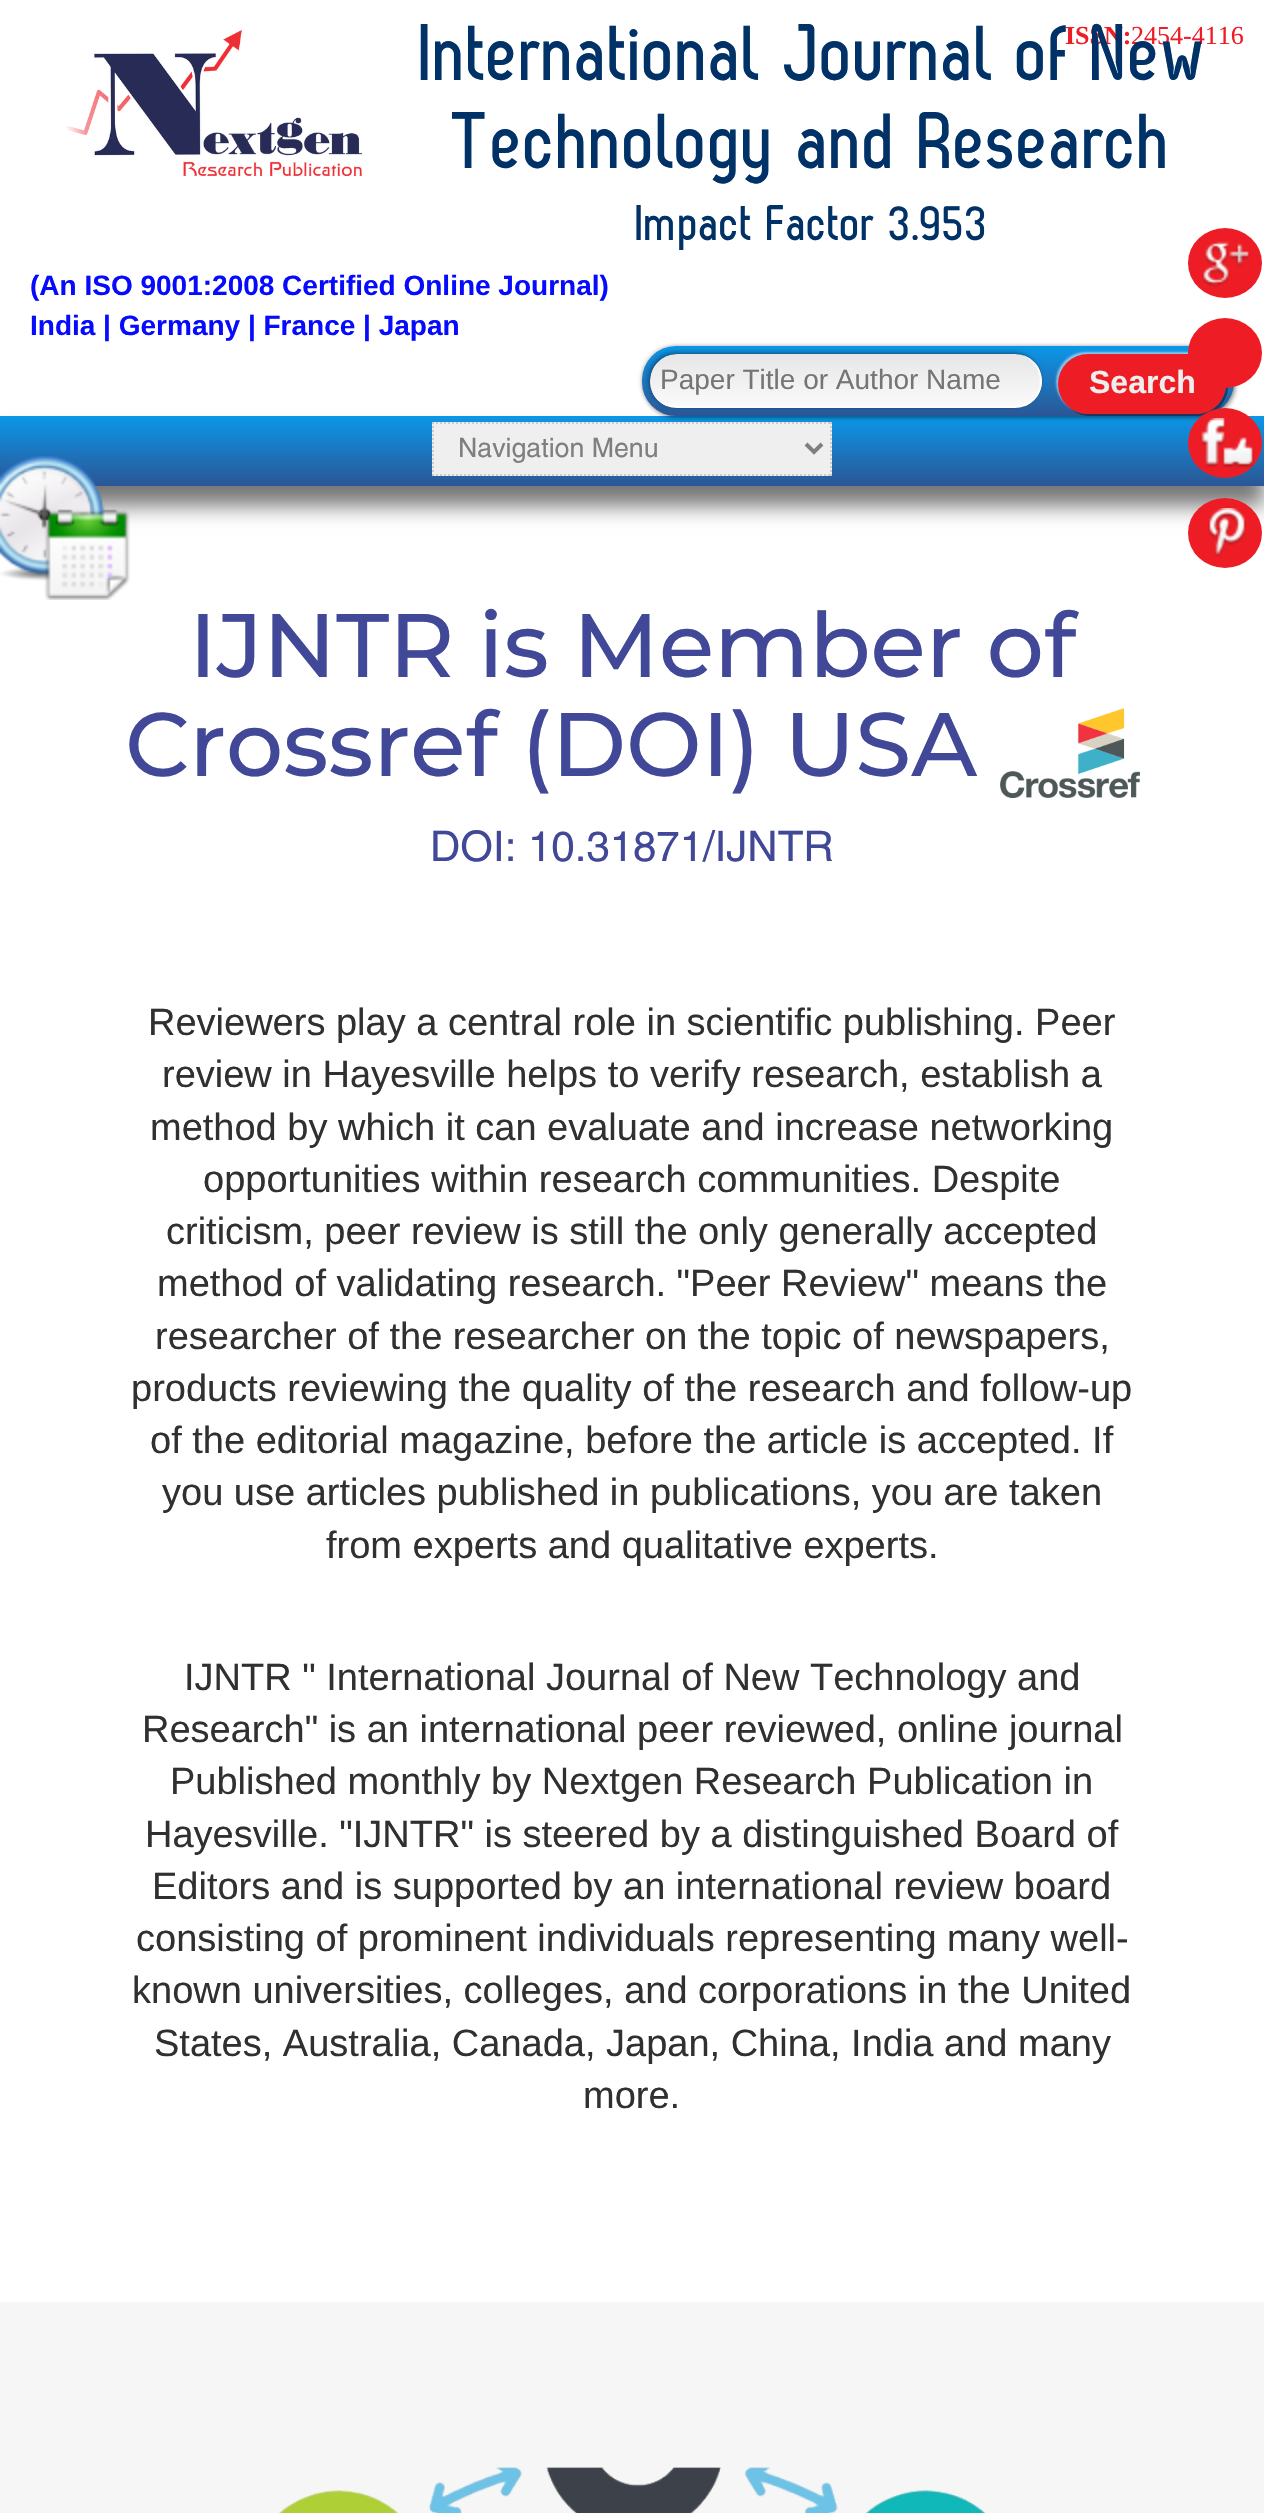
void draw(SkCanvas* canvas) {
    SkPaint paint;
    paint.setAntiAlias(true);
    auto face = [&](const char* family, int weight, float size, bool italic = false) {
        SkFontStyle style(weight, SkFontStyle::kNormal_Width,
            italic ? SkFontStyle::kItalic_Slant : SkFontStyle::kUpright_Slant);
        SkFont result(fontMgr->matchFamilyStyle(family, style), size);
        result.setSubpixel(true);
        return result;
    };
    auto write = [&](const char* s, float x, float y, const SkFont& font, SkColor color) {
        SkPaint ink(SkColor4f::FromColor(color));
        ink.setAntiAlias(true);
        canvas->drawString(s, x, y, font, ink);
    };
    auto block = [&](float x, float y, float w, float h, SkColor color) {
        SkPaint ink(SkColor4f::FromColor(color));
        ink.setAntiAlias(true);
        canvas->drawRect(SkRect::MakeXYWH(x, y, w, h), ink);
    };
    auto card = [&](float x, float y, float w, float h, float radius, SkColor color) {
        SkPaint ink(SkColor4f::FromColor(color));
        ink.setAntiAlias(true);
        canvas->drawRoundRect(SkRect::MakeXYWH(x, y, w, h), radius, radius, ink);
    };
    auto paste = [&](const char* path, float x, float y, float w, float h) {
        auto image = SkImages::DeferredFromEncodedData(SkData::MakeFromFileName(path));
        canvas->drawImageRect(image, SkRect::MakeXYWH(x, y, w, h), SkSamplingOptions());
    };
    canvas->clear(SK_ColorWHITE);
    auto kFont1 = face("Liberation Serif", 700, 26);
    write("ISSN:", 1065, 44, kFont1, SkColorSetRGB(238, 29, 37));
    auto kFont2 = face("Liberation Serif", 400, 26);
    write("2454-4116", 1131, 44, kFont2, SkColorSetRGB(238, 29, 37));
    auto kFont3 = face("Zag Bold", 700, 80);
    write("International Journal of New", 420, 80, kFont3, SkColorSetRGB(0, 50, 104));
    write("Technology and Research", 452, 168, kFont3, SkColorSetRGB(0, 50, 104));
    auto kFont4 = face("Zag Bold", 700, 50);
    write("Impact Factor 3.953", 636, 240, kFont4, SkColorSetRGB(0, 50, 104));
    auto kFont5 = face("Liberation Sans", 700, 28);
    write("(An ISO 9001:2008 Certified Online Journal)", 30, 295, kFont5, SkColorSetRGB(7, 11, 253));
    write("India | Germany | France | Japan", 30, 335, kFont5, SkColorSetRGB(7, 11, 253));
    paint.setColor(SkColorSetRGB(119, 119, 119));
    paint.setMaskFilter(SkMaskFilter::MakeBlur(kNormal_SkBlurStyle, 10));
    canvas->drawRect(SkRect::MakeXYWH(0, 436, 1264, 70), paint);
    paint.setMaskFilter(nullptr);
    {
        const SkColor colors[] = {SkColorSetRGB(11, 151, 232), SkColorSetRGB(43, 86, 149)};
        const float stops[] = {0, 1};
        const SkPoint ends[] = {{632, 416}, {632, 486}};
        paint.setShader(SkGradientShader::MakeLinear(ends, colors, stops, 2, SkTileMode::kClamp));
        paint.setAlpha(255);
    }
    canvas->drawRect(SkRect::MakeXYWH(0, 416, 1264, 70), paint);
    paint.setShader(nullptr);
    paint.setColor(SkColorSetARGB(77, 0, 0, 0));
    paint.setMaskFilter(SkMaskFilter::MakeBlur(kNormal_SkBlurStyle, 2));
    canvas->drawRoundRect(SkRect::MakeXYWH(642, 346, 592, 70), 34, 34, paint);
    paint.setMaskFilter(nullptr);
    paint.setMaskFilter(SkMaskFilter::MakeBlur(kNormal_SkBlurStyle, 2));
    canvas->drawRoundRect(SkRect::MakeXYWH(644, 348, 592, 70), 34, 34, paint);
    paint.setMaskFilter(nullptr);
    {
        const SkColor colors[] = {SkColorSetRGB(11, 151, 232), SkColorSetRGB(43, 86, 149)};
        const float stops[] = {0, 1};
        const SkPoint ends[] = {{938, 346}, {938, 416}};
        paint.setShader(SkGradientShader::MakeLinear(ends, colors, stops, 2, SkTileMode::kClamp));
        paint.setAlpha(255);
    }
    canvas->drawRoundRect(SkRect::MakeXYWH(642, 346, 592, 70), 34, 34, paint);
    paint.setShader(nullptr);
    paint.setColor(SkColorSetARGB(51, 0, 0, 0));
    paint.setMaskFilter(SkMaskFilter::MakeBlur(kNormal_SkBlurStyle, 1));
    canvas->drawRoundRect(SkRect::MakeXYWH(650, 354, 392, 54), 27, 27, paint);
    paint.setMaskFilter(nullptr);
    paint.setColor(SkColorSetARGB(77, 0, 0, 0));
    paint.setMaskFilter(SkMaskFilter::MakeBlur(kNormal_SkBlurStyle, 2));
    canvas->drawRoundRect(SkRect::MakeXYWH(648, 352, 392, 54), 27, 27, paint);
    paint.setMaskFilter(nullptr);
    canvas->save();
    canvas->clipPath(SkPathBuilder().moveTo(677, 354).lineTo(1015, 354).cubicTo(1030, 354, 1042, 366, 1042, 381).cubicTo(1042, 396, 1030, 408, 1015, 408).lineTo(677, 408).cubicTo(662, 408, 650, 396, 650, 381).cubicTo(650, 366, 662, 354, 677, 354).close().detach(), true);
    {
        const SkColor colors[] = {SkColorSetRGB(250, 250, 250), SkColorSetRGB(230, 230, 230)};
        const float stops[] = {0, 1};
        const SkPoint ends[] = {{650, 406}, {650, 354}};
        paint.setShader(SkGradientShader::MakeLinear(ends, colors, stops, 2, SkTileMode::kClamp));
        paint.setAlpha(255);
    }
    canvas->drawPath(SkPathBuilder().moveTo(677, 354).lineTo(1015, 354).cubicTo(1030, 354, 1042, 366, 1042, 381).lineTo(1042, 406).lineTo(650, 406).lineTo(650, 381).cubicTo(650, 366, 662, 354, 677, 354).close().detach(), paint);
    canvas->restore();
    paint.setShader(nullptr);
    paint.setColor(SkColorSetARGB(204, 255, 255, 255));
    canvas->drawPath(SkPathBuilder().moveTo(1042, 381).cubicTo(1042, 366, 1030, 354, 1015, 354).cubicTo(1037, 354, 1048, 384, 1033, 399).lineTo(1034, 400).cubicTo(1039, 395, 1042, 388, 1042, 381).close().detach(), paint);
    paint.setColor(SK_ColorWHITE);
    canvas->drawPath(SkPathBuilder().moveTo(677, 408).lineTo(1015, 408).cubicTo(1022, 408, 1029, 405, 1034, 400).lineTo(1033, 399).cubicTo(1028, 403, 1022, 406, 1015, 406).lineTo(677, 406).cubicTo(662, 406, 650, 395, 650, 381).cubicTo(650, 396, 662, 408, 677, 408).close().detach(), paint);
    auto kFont6 = face("Liberation Sans", 400, 28);
    write("Paper Title or Author Name", 660, 389, kFont6, SkColorSetRGB(117, 117, 117));
    paint.setColor(SkColorSetARGB(102, 0, 0, 0));
    canvas->drawPath(SkPathBuilder().moveTo(1068, 406).cubicTo(1073, 412, 1081, 416, 1090, 416).lineTo(1198, 416).cubicTo(1215, 416, 1228, 403, 1228, 386).cubicTo(1228, 377, 1224, 369, 1218, 364).cubicTo(1223, 369, 1226, 376, 1226, 384).cubicTo(1226, 401, 1213, 414, 1196, 414).lineTo(1088, 414).cubicTo(1080, 414, 1073, 411, 1068, 406).close().detach(), paint);
    paint.setColor(SkColorSetARGB(128, 255, 255, 255));
    paint.setMaskFilter(SkMaskFilter::MakeBlur(kNormal_SkBlurStyle, 1));
    canvas->drawRoundRect(SkRect::MakeXYWH(1056, 352, 168, 60), 30, 30, paint);
    paint.setMaskFilter(nullptr);
    card(1058, 354, 168, 60, 30, SkColorSetRGB(238, 29, 37));
    auto kFont7 = face("Liberation Sans", 700, 32);
    write("Search", 1089, 393, kFont7, SkColorSetRGB(238, 238, 238));
    paste("pic1.png", 66, 30, 296, 146);
    block(432, 422, 400, 54, SkColorSetRGB(239, 239, 239));
    paint.setStyle(SkPaint::kStroke_Style);
    paint.setStrokeWidth(2);
    paint.setColor(SkColorSetRGB(204, 204, 204));
    paint.setPathEffect(SkDashPathEffect::Make({{2, 2}}, 0));
    canvas->drawPath(SkPathBuilder().moveTo(432, 423).lineTo(832, 423).detach(), paint);
    paint.setPathEffect(nullptr);
    paint.setPathEffect(SkDashPathEffect::Make({{2, 2}}, 0));
    canvas->drawPath(SkPathBuilder().moveTo(831, 422).lineTo(831, 476).detach(), paint);
    paint.setPathEffect(nullptr);
    paint.setPathEffect(SkDashPathEffect::Make({{2, 2}}, 0));
    canvas->drawPath(SkPathBuilder().moveTo(432, 475).lineTo(832, 475).detach(), paint);
    paint.setPathEffect(nullptr);
    paint.setPathEffect(SkDashPathEffect::Make({{2, 2}}, 0));
    canvas->drawPath(SkPathBuilder().moveTo(433, 422).lineTo(433, 476).detach(), paint);
    paint.setPathEffect(nullptr);
    paint.setStrokeWidth(4);
    paint.setColor(SkColorSetRGB(128, 127, 127));
    canvas->drawPath(SkPathBuilder().moveTo(806, 444).lineTo(814, 452).lineTo(822, 444).detach(), paint);
    auto kFont8 = face("Helvetica", 400, 26.75f);
    write("Navigation Menu", 458, 457, kFont8, SkColorSetRGB(128, 127, 127));
    paint.setStyle(SkPaint::kFill_Style);
    paint.setColor(SkColorSetRGB(238, 29, 37));
    canvas->drawOval(SkRect::MakeXYWH(1188, 228, 74, 70), paint);
    paste("pic2.png", 1202, 241, 48, 46);
    canvas->drawOval(SkRect::MakeXYWH(1188, 318, 74, 70), paint);
    canvas->drawOval(SkRect::MakeXYWH(1188, 408, 74, 70), paint);
    paste("pic3.png", 1200, 418, 54, 50);
    canvas->drawOval(SkRect::MakeXYWH(1188, 498, 74, 70), paint);
    paste("pic4.png", 1208, 508, 38, 49);
    paste("pic5.png", 0, 456, 130, 144);
    auto kFont9 = face("Montserrat", 500, 90);
    write("IJNTR is Member of", 189, 677, kFont9, SkColorSetRGB(64, 72, 151));
    write("Crossref (DOI) USA", 125, 776, kFont9, SkColorSetRGB(64, 72, 151));
    paste("pic6.png", 1000, 708, 140, 90);
    auto kFont10 = face("Helvetica", 400, 42);
    write("DOI: 10.31871/IJNTR", 430, 861, kFont10, SkColorSetRGB(64, 72, 151));
    auto kFont11 = face("Liberation Sans", 400, 38);
    write("Reviewers play a central role in scientific publishing. Peer", 148, 1035, kFont11, SkColorSetRGB(48, 48, 48));
    write("review in Hayesville helps to verify research, establish a", 162, 1087, kFont11, SkColorSetRGB(48, 48, 48));
    write("method by which it can evaluate and increase networking", 150, 1140, kFont11, SkColorSetRGB(48, 48, 48));
    write("opportunities within research communities. Despite", 203, 1192, kFont11, SkColorSetRGB(48, 48, 48));
    write("criticism, peer review is still the only generally accepted", 166, 1244, kFont11, SkColorSetRGB(48, 48, 48));
    write("method of validating research. \"Peer Review\" means the", 157, 1296, kFont11, SkColorSetRGB(48, 48, 48));
    write("researcher of the researcher on the topic of newspapers,", 155, 1349, kFont11, SkColorSetRGB(48, 48, 48));
    write("products reviewing the quality of the research and follow-up", 131, 1401, kFont11, SkColorSetRGB(48, 48, 48));
    write("of the editorial magazine, before the article is accepted. If", 150, 1453, kFont11, SkColorSetRGB(48, 48, 48));
    write("you use articles published in publications, you are taken", 162, 1505, kFont11, SkColorSetRGB(48, 48, 48));
    write("from experts and qualitative experts.", 326, 1558, kFont11, SkColorSetRGB(48, 48, 48));
    write("IJNTR \" International Journal of New Technology and", 184, 1690, kFont11, SkColorSetRGB(48, 48, 48));
    write("Research\" is an international peer reviewed, online journal", 142, 1742, kFont11, SkColorSetRGB(48, 48, 48));
    write("Published monthly by Nextgen Research Publication in", 170, 1794, kFont11, SkColorSetRGB(48, 48, 48));
    write("Hayesville. \"IJNTR\" is steered by a distinguished Board of", 145, 1847, kFont11, SkColorSetRGB(48, 48, 48));
    write("Editors and is supported by an international review board", 152, 1899, kFont11, SkColorSetRGB(48, 48, 48));
    write("consisting of prominent individuals representing many well-", 136, 1951, kFont11, SkColorSetRGB(48, 48, 48));
    write("known universities, colleges, and corporations in the United", 132, 2003, kFont11, SkColorSetRGB(48, 48, 48));
    write("States, Australia, Canada, Japan, China, India and many", 154, 2056, kFont11, SkColorSetRGB(48, 48, 48));
    write("more.", 583, 2108, kFont11, SkColorSetRGB(48, 48, 48));
    block(0, 2302, 1264, 211, SkColorSetRGB(246, 246, 246));
    paste("pic7.png", 278, 2467, 708, 46);
}
